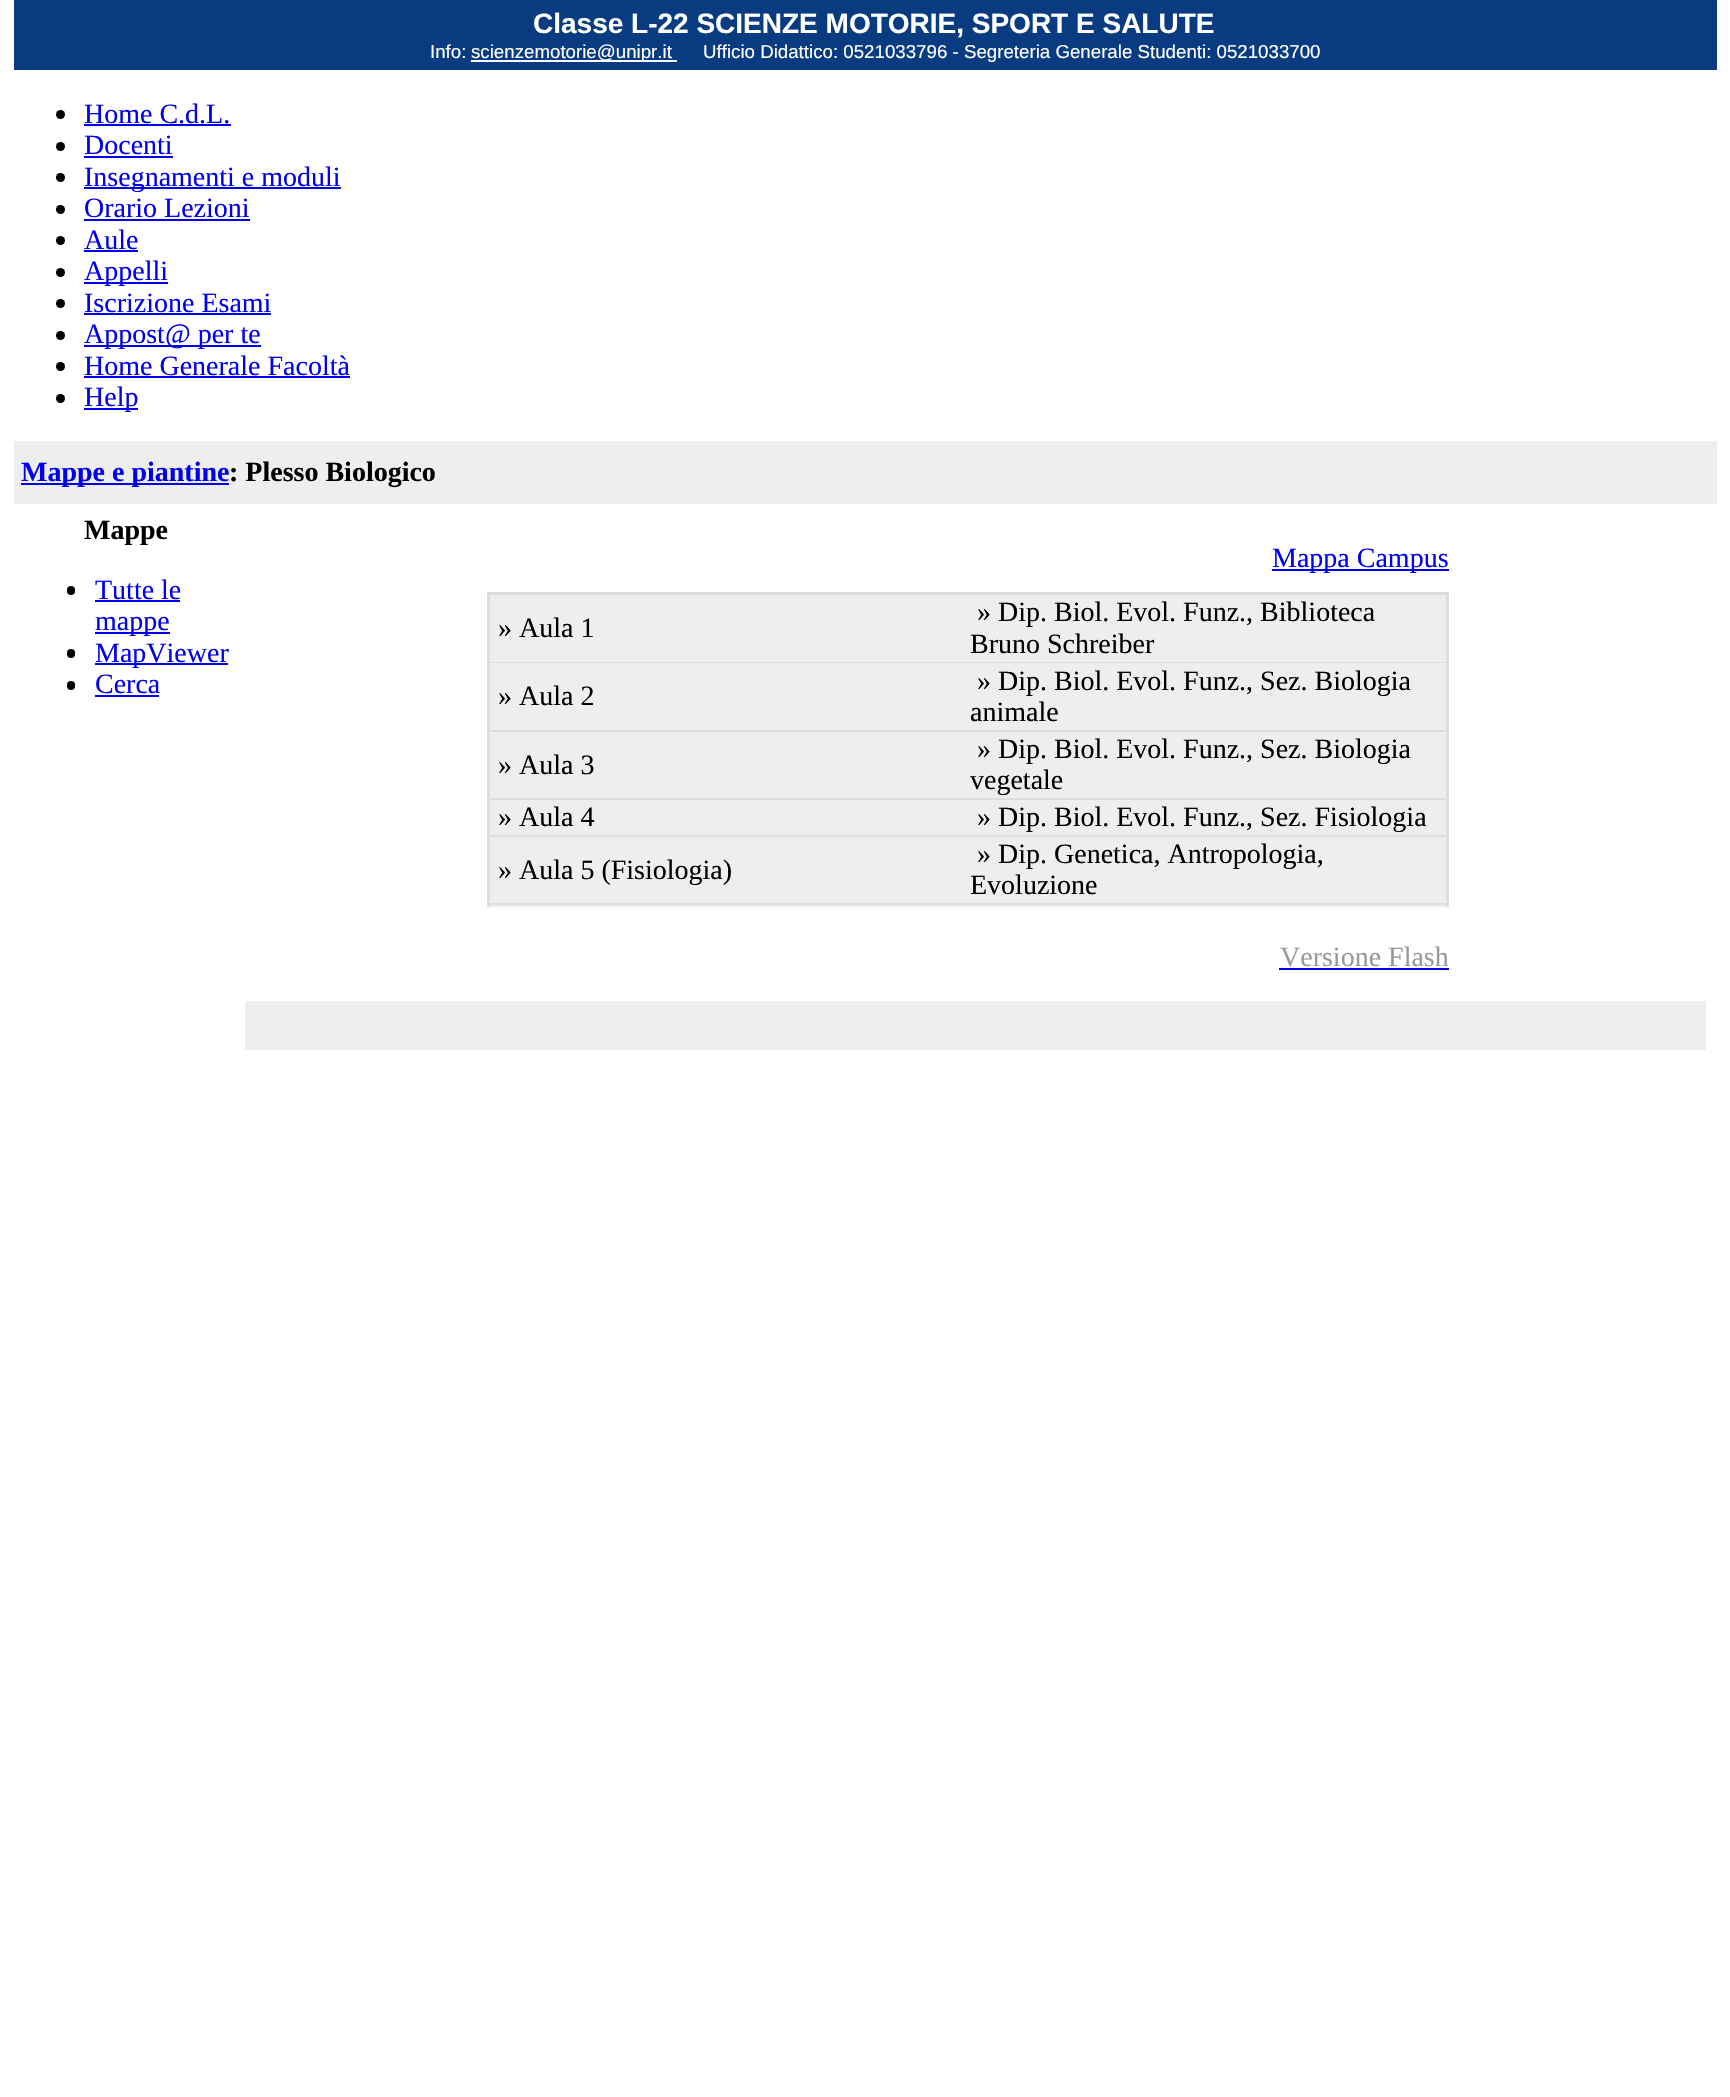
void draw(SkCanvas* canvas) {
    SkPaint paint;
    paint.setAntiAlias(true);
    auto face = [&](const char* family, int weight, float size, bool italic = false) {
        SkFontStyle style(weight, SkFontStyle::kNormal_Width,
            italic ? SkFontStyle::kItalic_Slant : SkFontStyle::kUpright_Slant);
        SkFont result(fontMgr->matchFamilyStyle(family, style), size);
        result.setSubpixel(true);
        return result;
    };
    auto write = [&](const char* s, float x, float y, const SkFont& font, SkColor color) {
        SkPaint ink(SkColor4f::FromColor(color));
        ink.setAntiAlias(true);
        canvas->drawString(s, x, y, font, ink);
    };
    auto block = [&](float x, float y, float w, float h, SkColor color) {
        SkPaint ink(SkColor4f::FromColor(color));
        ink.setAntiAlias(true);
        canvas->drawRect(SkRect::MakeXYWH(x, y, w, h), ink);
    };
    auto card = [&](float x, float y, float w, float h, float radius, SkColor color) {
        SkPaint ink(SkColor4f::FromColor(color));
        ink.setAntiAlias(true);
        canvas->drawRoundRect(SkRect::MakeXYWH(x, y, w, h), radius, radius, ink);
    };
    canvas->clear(SK_ColorWHITE);
    block(14, 0, 1703, 70, SkColorSetRGB(9, 59, 129));
    auto kFont1 = face("Liberation Sans", 700, 28);
    write("Classe L-22 SCIENZE MOTORIE, SPORT E SALUTE", 533, 33, kFont1, SK_ColorWHITE);
    auto kFont2 = face("Liberation Sans", 400, 18.7f);
    write("Info:", 430, 58, kFont2, SK_ColorWHITE);
    block(471, 60, 206, 2, SK_ColorWHITE);
    write("scienzemotorie@unipr.it", 471, 58, kFont2, SK_ColorWHITE);
    write("Ufficio Didattico: 0521033796 - Segreteria Generale Studenti: 0521033700", 703, 58, kFont2, SK_ColorWHITE);
    paint.setColor(SK_ColorBLACK);
    canvas->drawCircle(60.5f, 114.5f, 4.5f, paint);
    auto kFont3 = face("Liberation Serif", 400, 28);
    write("Home C.d.L.", 84, 123, kFont3, SkColorSetRGB(0, 0, 238));
    block(84, 124, 147, 2, SkColorSetRGB(0, 0, 238));
    canvas->drawCircle(60.5f, 146.5f, 4.5f, paint);
    write("Docenti", 84, 154, kFont3, SkColorSetRGB(0, 0, 238));
    block(84, 156, 89, 2, SkColorSetRGB(0, 0, 238));
    canvas->drawCircle(60.5f, 177.5f, 4.5f, paint);
    block(84, 187, 257, 2, SkColorSetRGB(0, 0, 238));
    write("Insegnamenti e moduli", 84, 186, kFont3, SkColorSetRGB(0, 0, 238));
    canvas->drawCircle(60.5f, 209.5f, 4.5f, paint);
    write("Orario Lezioni", 84, 217, kFont3, SkColorSetRGB(0, 0, 238));
    block(84, 219, 166, 2, SkColorSetRGB(0, 0, 238));
    canvas->drawCircle(60.5f, 240.5f, 4.5f, paint);
    write("Aule", 84, 249, kFont3, SkColorSetRGB(0, 0, 238));
    block(84, 250, 54, 2, SkColorSetRGB(0, 0, 238));
    canvas->drawCircle(60.5f, 272.5f, 4.5f, paint);
    block(84, 282, 84, 2, SkColorSetRGB(0, 0, 238));
    write("Appelli", 84, 280, kFont3, SkColorSetRGB(0, 0, 238));
    canvas->drawCircle(60.5f, 303.5f, 4.5f, paint);
    write("Iscrizione Esami", 84, 312, kFont3, SkColorSetRGB(0, 0, 238));
    block(84, 313, 187, 2, SkColorSetRGB(0, 0, 238));
    canvas->drawCircle(60.5f, 335.5f, 4.5f, paint);
    block(84, 345, 177, 2, SkColorSetRGB(0, 0, 238));
    write("Appost@ per te", 84, 343, kFont3, SkColorSetRGB(0, 0, 238));
    canvas->drawCircle(60.5f, 366.5f, 4.5f, paint);
    write("Home Generale Facoltà", 84, 375, kFont3, SkColorSetRGB(0, 0, 238));
    block(84, 376, 266, 2, SkColorSetRGB(0, 0, 238));
    canvas->drawCircle(60.5f, 398.5f, 4.5f, paint);
    block(84, 408, 54, 2, SkColorSetRGB(0, 0, 238));
    write("Help", 84, 406, kFont3, SkColorSetRGB(0, 0, 238));
    block(14, 441, 1703, 63, SkColorSetRGB(238, 238, 238));
    block(21, 483, 208, 2, SkColorSetRGB(0, 0, 238));
    auto kFont4 = face("Liberation Serif", 700, 28);
    write("Mappe e piantine", 21, 481, kFont4, SkColorSetRGB(0, 0, 238));
    write(": Plesso Biologico", 229, 481, kFont4, SK_ColorBLACK);
    write("Mappe", 84, 539, kFont4, SK_ColorBLACK);
    card(67, 586, 8, 9, 4, SK_ColorBLACK);
    write("Tutte le", 95, 599, kFont3, SkColorSetRGB(0, 0, 238));
    block(95, 600, 85, 2, SkColorSetRGB(0, 0, 238));
    block(95, 632, 75, 2, SkColorSetRGB(0, 0, 238));
    write("mappe", 95, 630, kFont3, SkColorSetRGB(0, 0, 238));
    card(67, 649, 8, 9, 4, SK_ColorBLACK);
    block(95, 663, 133, 2, SkColorSetRGB(0, 0, 238));
    write("MapViewer", 95, 662, kFont3, SkColorSetRGB(0, 0, 238));
    card(67, 681, 8, 9, 4, SK_ColorBLACK);
    write("Cerca", 95, 693, kFont3, SkColorSetRGB(0, 0, 238));
    block(95, 695, 64, 2, SkColorSetRGB(0, 0, 238));
    block(1272, 569, 177, 2, SkColorSetRGB(0, 0, 238));
    write("Mappa Campus", 1272, 567, kFont3, SkColorSetRGB(0, 0, 238));
    block(487, 592, 962, 315, SkColorSetRGB(221, 221, 221));
    block(490, 595, 956, 67, SkColorSetRGB(238, 238, 238));
    write("» Aula 1", 498, 637, kFont3, SK_ColorBLACK);
    write("» Dip. Biol. Evol. Funz., Biblioteca", 977, 621, kFont3, SK_ColorBLACK);
    write("Bruno Schreiber", 970, 653, kFont3, SK_ColorBLACK);
    block(490, 663, 956, 67, SkColorSetRGB(238, 238, 238));
    write("» Aula 2", 498, 705, kFont3, SK_ColorBLACK);
    write("» Dip. Biol. Evol. Funz., Sez. Biologia", 977, 690, kFont3, SK_ColorBLACK);
    write("animale", 970, 721, kFont3, SK_ColorBLACK);
    block(490, 732, 956, 66, SkColorSetRGB(238, 238, 238));
    write("» Aula 3", 498, 774, kFont3, SK_ColorBLACK);
    write("» Dip. Biol. Evol. Funz., Sez. Biologia", 977, 758, kFont3, SK_ColorBLACK);
    write("vegetale", 970, 789, kFont3, SK_ColorBLACK);
    block(490, 800, 956, 35, SkColorSetRGB(238, 238, 238));
    write("» Aula 4", 498, 826, kFont3, SK_ColorBLACK);
    write("» Dip. Biol. Evol. Funz., Sez. Fisiologia", 977, 826, kFont3, SK_ColorBLACK);
    block(490, 837, 956, 66, SkColorSetRGB(238, 238, 238));
    write("» Aula 5 (Fisiologia)", 498, 879, kFont3, SK_ColorBLACK);
    write("» Dip. Genetica, Antropologia,", 977, 863, kFont3, SK_ColorBLACK);
    write("Evoluzione", 970, 894, kFont3, SK_ColorBLACK);
    block(490, 905, 956, 2, SkColorSetRGB(238, 238, 238));
    write("Versione Flash", 1280, 966, kFont3, SkColorSetRGB(153, 153, 153));
    block(1279, 968, 170, 2, SkColorSetRGB(0, 0, 238));
    block(245, 1001, 1461, 49, SkColorSetRGB(238, 238, 238));
}
